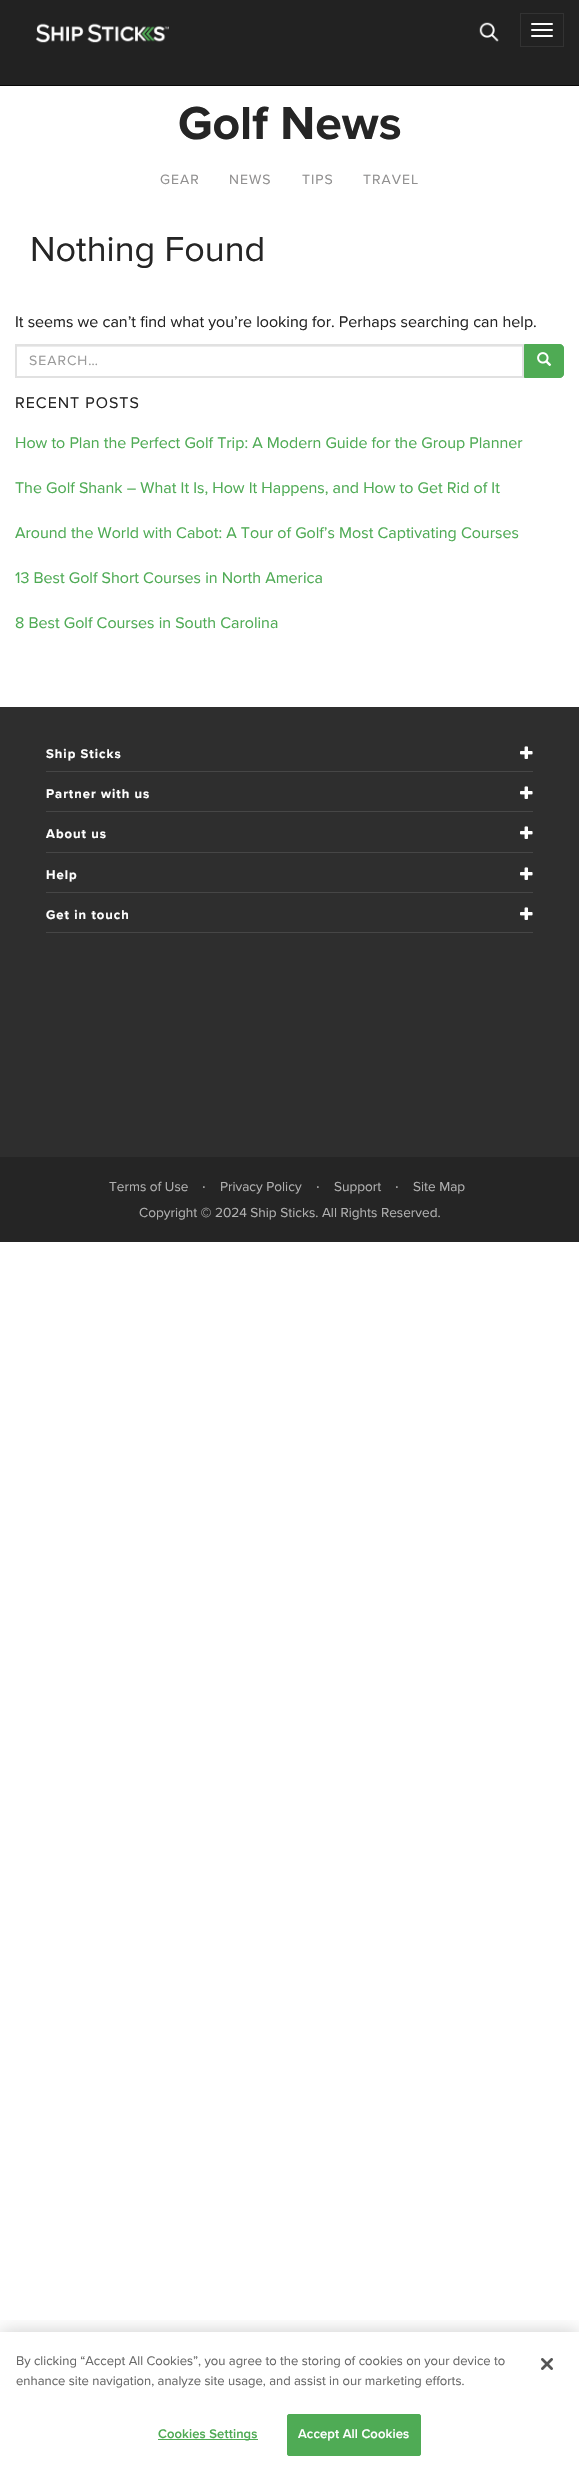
void draw(SkCanvas* canvas) {
    SkPaint paint;
    paint.setAntiAlias(true);
    auto face = [&](const char* family, int weight, float size, bool italic = false) {
        SkFontStyle style(weight, SkFontStyle::kNormal_Width,
            italic ? SkFontStyle::kItalic_Slant : SkFontStyle::kUpright_Slant);
        SkFont result(fontMgr->matchFamilyStyle(family, style), size);
        result.setSubpixel(true);
        return result;
    };
    auto write = [&](const char* s, float x, float y, const SkFont& font, SkColor color) {
        SkPaint ink(SkColor4f::FromColor(color));
        ink.setAntiAlias(true);
        canvas->drawString(s, x, y, font, ink);
    };
    auto writeSpaced = [&](const char* s, float x, float y, const SkFont& font, const SkPaint& ink, float letter, float word) {
        std::vector<SkGlyphID> glyphs(font.countText(s, strlen(s), SkTextEncoding::kUTF8));
        std::vector<float> xs(glyphs.size());
        font.textToGlyphs(s, strlen(s), SkTextEncoding::kUTF8, glyphs);
        font.getXPos(glyphs, xs, x);
        float extra = 0;
        for (size_t i = 0; i < glyphs.size(); i++) {
            xs[i] += extra;
            extra += letter + word * (glyphs[i] == font.unicharToGlyph(' '));
        }
        canvas->drawTextBlob(SkTextBlob::MakeFromPosHGlyphs(glyphs, xs, y, font), 0, 0, ink);
    };
    auto block = [&](float x, float y, float w, float h, SkColor color) {
        SkPaint ink(SkColor4f::FromColor(color));
        ink.setAntiAlias(true);
        canvas->drawRect(SkRect::MakeXYWH(x, y, w, h), ink);
    };
    auto card = [&](float x, float y, float w, float h, float radius, SkColor color) {
        SkPaint ink(SkColor4f::FromColor(color));
        ink.setAntiAlias(true);
        canvas->drawRoundRect(SkRect::MakeXYWH(x, y, w, h), radius, radius, ink);
    };
    auto paste = [&](const char* path, float x, float y, float w, float h) {
        auto image = SkImages::DeferredFromEncodedData(SkData::MakeFromFileName(path));
        canvas->drawImageRect(image, SkRect::MakeXYWH(x, y, w, h), SkSamplingOptions());
    };
    canvas->clear(SK_ColorWHITE);
    block(0, 0, 579, 85, SkColorSetRGB(34, 34, 34));
    block(0, 85, 579, 1, SkColorSetRGB(8, 8, 8));
    paste("pic1.png", 36, 23, 133, 20);
    paste("pic2.png", 479, 22, 20, 20);
    paint.setStyle(SkPaint::kStroke_Style);
    paint.setStrokeWidth(1);
    paint.setColor(SkColorSetRGB(51, 51, 51));
    canvas->drawRect(SkRect::MakeXYWH(520.5f, 13.5f, 43, 33), paint);
    card(531, 23, 22, 2, 1, SK_ColorWHITE);
    card(531, 29, 22, 2, 1, SK_ColorWHITE);
    card(531, 35, 22, 2, 1, SK_ColorWHITE);
    auto kFont1 = face("Proxima Nova", 700, 48);
    write("Golf News", 178, 139, kFont1, SkColorSetRGB(37, 37, 37));
    auto kFont2 = face("Proxima Nova", 400, 14);
    paint.setStyle(SkPaint::kFill_Style);
    paint.setColor(SkColorSetRGB(144, 143, 143));
    writeSpaced("GEAR", 160, 184, kFont2, paint, 1, 0);
    writeSpaced("NEWS", 229, 184, kFont2, paint, 1, 0);
    writeSpaced("TIPS", 302, 184, kFont2, paint, 1, 0);
    writeSpaced("TRAVEL", 363, 184, kFont2, paint, 1, 0);
    auto kFont3 = face("Proxima Nova", 400, 36);
    write("Nothing Found", 30, 261, kFont3, SkColorSetRGB(37, 37, 37));
    auto kFont4 = face("Proxima Nova", 400, 16);
    write("It seems we can’t find what you’re looking for. Perhaps searching can help.", 15, 327, kFont4, SkColorSetRGB(37, 37, 37));
    block(17, 346, 505, 1, SkColorSetRGB(236, 236, 236));
    paint.setStyle(SkPaint::kStroke_Style);
    paint.setStrokeWidth(2);
    paint.setColor(SkColorSetRGB(225, 225, 225));
    canvas->drawRect(SkRect::MakeXYWH(16, 345, 507, 32), paint);
    paint.setStyle(SkPaint::kFill_Style);
    paint.setColor(SkColorSetRGB(153, 153, 153));
    writeSpaced("SEARCH…", 29, 365, kFont2, paint, 1, 0);
    paint.setColor(SkColorSetRGB(79, 171, 84));
    canvas->drawPath(SkPathBuilder().moveTo(524.5f, 344.5f).lineTo(560, 344.5f).cubicTo(562, 344.5f, 563.5f, 346, 563.5f, 348).lineTo(563.5f, 374).cubicTo(563.5f, 376, 562, 377.5f, 560, 377.5f).lineTo(524.5f, 377.5f).close().detach(), paint);
    paint.setStyle(SkPaint::kStroke_Style);
    paint.setStrokeWidth(1);
    canvas->drawPath(SkPathBuilder().moveTo(524.5f, 344.5f).lineTo(560, 344.5f).cubicTo(562, 344.5f, 563.5f, 346, 563.5f, 348).lineTo(563.5f, 374).cubicTo(563.5f, 376, 562, 377.5f, 560, 377.5f).lineTo(524.5f, 377.5f).close().detach(), paint);
    paste("pic3.png", 537, 352, 15, 14);
    paint.setStyle(SkPaint::kFill_Style);
    paint.setColor(SkColorSetRGB(37, 37, 37));
    writeSpaced("RECENT POSTS", 15, 408, kFont4, paint, 1, 0);
    write("How to Plan the Perfect Golf Trip: A Modern Guide for the Group Planner", 15, 448, kFont4, SkColorSetRGB(79, 171, 85));
    write("The Golf Shank – What It Is, How It Happens, and How to Get Rid of It", 15, 493, kFont4, SkColorSetRGB(79, 171, 85));
    write("Around the World with Cabot: A Tour of Golf’s Most Captivating Courses", 15, 538, kFont4, SkColorSetRGB(79, 171, 85));
    write("13 Best Golf Short Courses in North America", 15, 583, kFont4, SkColorSetRGB(79, 171, 85));
    write("8 Best Golf Courses in South Carolina", 15, 628, kFont4, SkColorSetRGB(79, 171, 85));
    block(0, 707, 579, 450, SkColorSetRGB(46, 46, 46));
    block(46, 771, 487, 1, SkColorSetRGB(70, 70, 70));
    auto kFont5 = face("Proxima Nova", 700, 13);
    paint.setColor(SK_ColorWHITE);
    writeSpaced("Ship Sticks", 46, 758, kFont5, paint, 1, 0);
    paste("pic4.png", 520, 746, 13, 13);
    block(46, 811, 487, 1, SkColorSetRGB(70, 70, 70));
    writeSpaced("Partner with us", 46, 798, kFont5, paint, 1, 0);
    paste("pic4.png", 520, 786, 13, 13);
    block(46, 852, 487, 1, SkColorSetRGB(70, 70, 70));
    writeSpaced("About us", 46, 838, kFont5, paint, 1, 0);
    paste("pic4.png", 520, 826, 13, 13);
    block(46, 892, 487, 1, SkColorSetRGB(70, 70, 70));
    writeSpaced("Help", 46, 879, kFont5, paint, 1, 0);
    paste("pic4.png", 520, 867, 13, 13);
    block(46, 932, 487, 1, SkColorSetRGB(70, 70, 70));
    writeSpaced("Get in touch", 46, 919, kFont5, paint, 1, 0);
    paste("pic4.png", 520, 907, 13, 13);
    block(0, 1157, 579, 85, SkColorSetRGB(37, 37, 37));
    auto kFont6 = face("Proxima Nova", 400, 13.6f);
    write("Terms of Use", 109, 1191, kFont6, SkColorSetRGB(176, 176, 176));
    write("·", 202, 1191, kFont4, SkColorSetRGB(176, 176, 176));
    write("Privacy Policy", 220, 1191, kFont6, SkColorSetRGB(176, 176, 176));
    write("·", 316, 1191, kFont4, SkColorSetRGB(176, 176, 176));
    write("Support", 334, 1191, kFont6, SkColorSetRGB(176, 176, 176));
    write("·", 395, 1191, kFont4, SkColorSetRGB(176, 176, 176));
    write("Site Map", 413, 1191, kFont6, SkColorSetRGB(176, 176, 176));
    write("Copyright © 2024 Ship Sticks. All Rights Reserved.", 139, 1217, kFont6, SkColorSetRGB(176, 176, 176));
    canvas->save();
    canvas->clipRect(SkRect::MakeXYWH(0, 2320, 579, 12));
    paint.setColor(SkColorSetARGB(51, 0, 0, 0));
    paint.setMaskFilter(SkMaskFilter::MakeBlur(kNormal_SkBlurStyle, 9));
    canvas->drawRect(SkRect::MakeXYWH(0, 2332, 579, 134), paint);
    paint.setMaskFilter(nullptr);
    canvas->restore();
    auto kFont7 = face("Proxima Nova", 400, 13);
    write("By clicking “Accept All Cookies”, you agree to the storing of cookies on your device to", 16, 2365, kFont7, SkColorSetRGB(105, 105, 105));
    write("enhance site navigation, analyze site usage, and assist in our marketing efforts.", 16, 2385, kFont7, SkColorSetRGB(105, 105, 105));
    block(158, 2439, 100, 1, SkColorSetRGB(79, 171, 85));
    auto kFont8 = face("Proxima Nova", 600, 13);
    paint.setColor(SkColorSetRGB(79, 171, 85));
    writeSpaced("Cookies Settings", 158, 2438, kFont8, paint, 0.1f, 0);
    canvas->drawRoundRect(SkRect::MakeXYWH(287.5f, 2414.5f, 133, 41), 1.5f, 1.5f, paint);
    paint.setStyle(SkPaint::kStroke_Style);
    canvas->drawRoundRect(SkRect::MakeXYWH(287.5f, 2414.5f, 133, 41), 1.5f, 1.5f, paint);
    paint.setStyle(SkPaint::kFill_Style);
    paint.setColor(SK_ColorWHITE);
    writeSpaced("Accept All Cookies", 298, 2438, kFont8, paint, 0.1f, 0);
    paste("pic5.png", 541, 2358, 12, 12);
}
